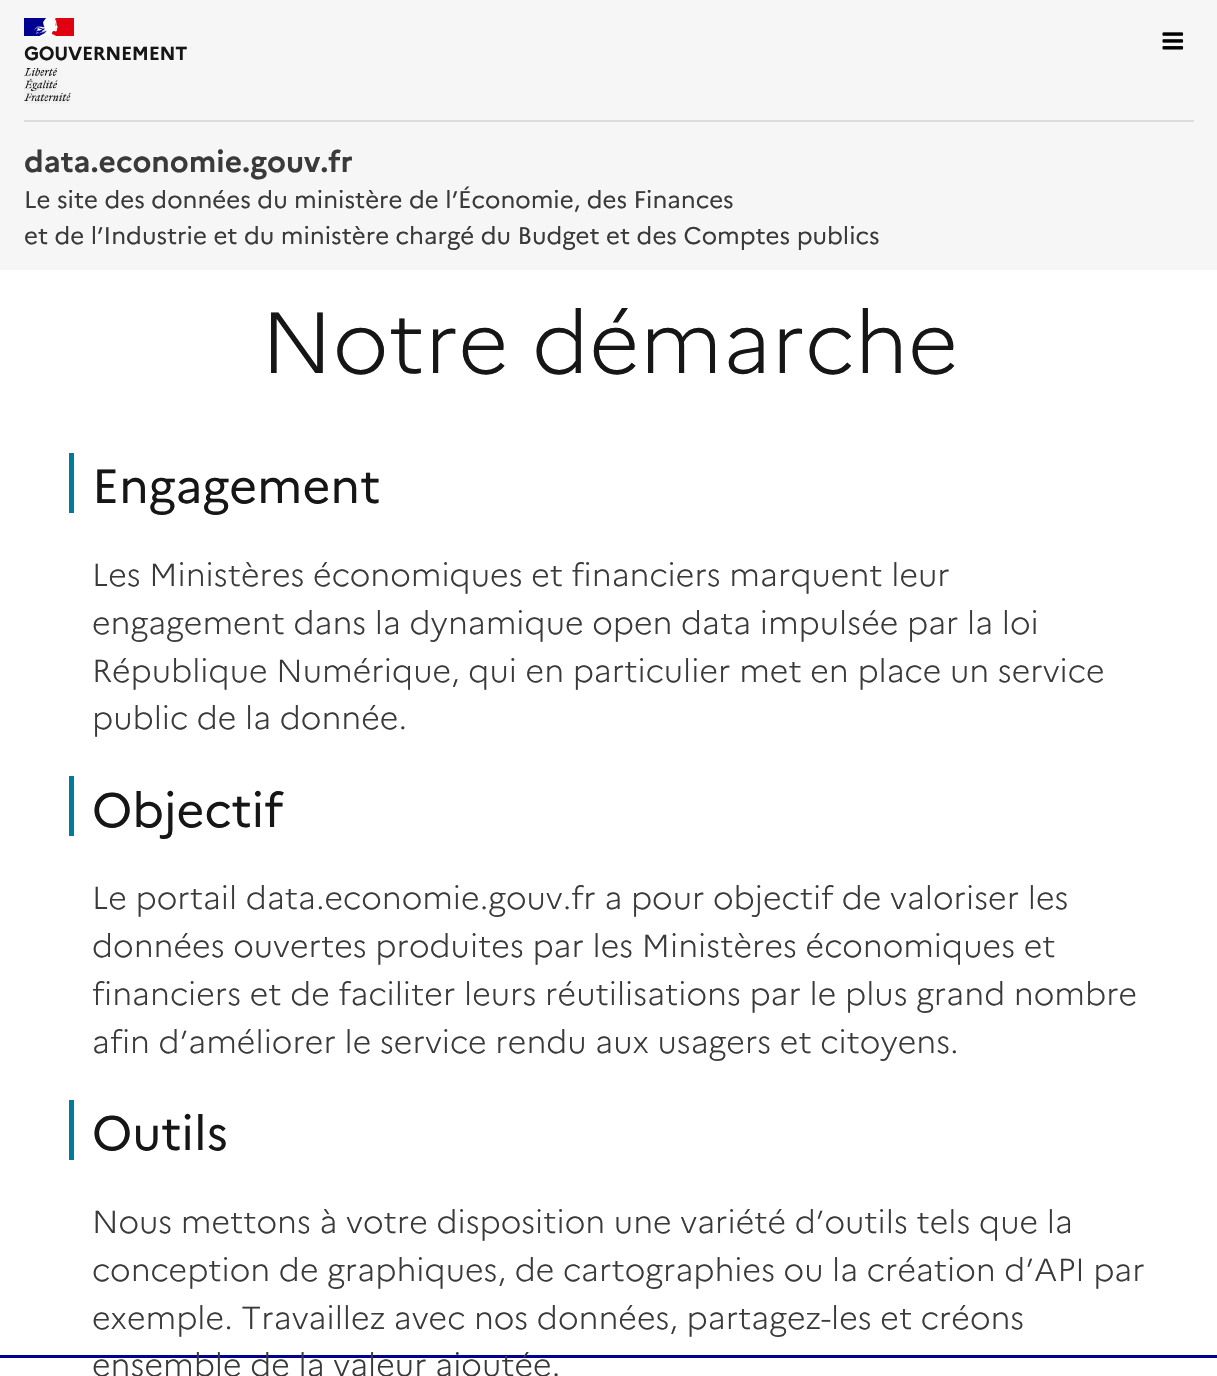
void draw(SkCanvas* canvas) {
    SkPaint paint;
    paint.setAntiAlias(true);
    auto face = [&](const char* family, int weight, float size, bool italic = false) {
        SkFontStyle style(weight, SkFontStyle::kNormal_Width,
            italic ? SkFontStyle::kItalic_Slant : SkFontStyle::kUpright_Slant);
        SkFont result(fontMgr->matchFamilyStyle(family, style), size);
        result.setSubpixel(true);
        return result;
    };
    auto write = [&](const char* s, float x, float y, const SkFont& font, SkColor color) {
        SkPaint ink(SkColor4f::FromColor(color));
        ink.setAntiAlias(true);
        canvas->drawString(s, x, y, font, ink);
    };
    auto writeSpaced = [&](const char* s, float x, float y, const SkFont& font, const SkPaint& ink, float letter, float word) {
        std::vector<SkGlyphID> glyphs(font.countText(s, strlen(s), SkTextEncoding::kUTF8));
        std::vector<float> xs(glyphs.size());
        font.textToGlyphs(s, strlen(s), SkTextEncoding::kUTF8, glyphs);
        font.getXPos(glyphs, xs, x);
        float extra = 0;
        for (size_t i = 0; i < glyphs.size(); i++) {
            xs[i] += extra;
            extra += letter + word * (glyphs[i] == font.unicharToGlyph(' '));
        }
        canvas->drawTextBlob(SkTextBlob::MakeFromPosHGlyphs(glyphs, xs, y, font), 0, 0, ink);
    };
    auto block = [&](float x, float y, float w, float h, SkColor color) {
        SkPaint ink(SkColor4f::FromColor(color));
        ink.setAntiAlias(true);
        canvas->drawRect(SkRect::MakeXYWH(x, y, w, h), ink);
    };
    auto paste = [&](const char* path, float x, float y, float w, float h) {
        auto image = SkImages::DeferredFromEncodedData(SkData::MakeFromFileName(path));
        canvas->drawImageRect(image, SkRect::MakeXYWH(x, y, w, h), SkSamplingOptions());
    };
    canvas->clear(SK_ColorWHITE);
    block(0, 0, 1217, 270, SkColorSetRGB(246, 246, 246));
    paste("pic1.png", 1162, 32, 22, 18);
    block(24, 18, 23, 18, SkColorSetRGB(0, 0, 145));
    block(51, 18, 23, 18, SkColorSetRGB(225, 0, 15));
    paste("pic2.png", 34, 18, 24, 18);
    auto kFont1 = face("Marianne", 700, 19);
    paint.setColor(SkColorSetRGB(22, 22, 22));
    writeSpaced("GOUVERNEMENT", 24, 60, kFont1, paint, -0.25f, 0);
    paste("pic3.png", 24, 68, 47, 36);
    block(24, 120, 1170, 2, SkColorSetRGB(221, 221, 221));
    auto kFont2 = face("Marianne", 700, 30);
    write("data.economie.gouv.fr", 24, 172, kFont2, SkColorSetRGB(58, 58, 58));
    auto kFont3 = face("Marianne", 400, 24);
    write("Le site des données du ministère de l’Économie, des Finances", 24, 208, kFont3, SkColorSetRGB(58, 58, 58));
    write("et de l’Industrie et du ministère chargé du Budget et des Comptes publics", 24, 244, kFont3, SkColorSetRGB(58, 58, 58));
    auto kFont4 = face("Marianne", 300, 86.5f);
    write("Notre démarche", 261, 373, kFont4, SkColorSetRGB(22, 22, 22));
    block(69, 453, 5, 60, SkColorSetRGB(0, 123, 156));
    auto kFont5 = face("Marianne", 400, 48);
    write("Engagement", 92, 503, kFont5, SkColorSetRGB(22, 22, 22));
    auto kFont6 = face("Marianne", 300, 31.9f);
    write("Les Ministères économiques et financiers marquent leur", 92, 586, kFont6, SkColorSetRGB(58, 58, 58));
    write("engagement dans la dynamique open data impulsée par la loi", 92, 634, kFont6, SkColorSetRGB(58, 58, 58));
    write("République Numérique, qui en particulier met en place un service", 92, 682, kFont6, SkColorSetRGB(58, 58, 58));
    write("public de la donnée.", 92, 729, kFont6, SkColorSetRGB(58, 58, 58));
    block(69, 776, 5, 60, SkColorSetRGB(0, 123, 156));
    write("Objectif", 92, 827, kFont5, SkColorSetRGB(22, 22, 22));
    write("Le portail data.economie.gouv.fr a pour objectif de valoriser les", 92, 909, kFont6, SkColorSetRGB(58, 58, 58));
    write("données ouvertes produites par les Ministères économiques et", 92, 957, kFont6, SkColorSetRGB(58, 58, 58));
    write("financiers et de faciliter leurs réutilisations par le plus grand nombre", 92, 1005, kFont6, SkColorSetRGB(58, 58, 58));
    write("afin d’améliorer le service rendu aux usagers et citoyens.", 92, 1053, kFont6, SkColorSetRGB(58, 58, 58));
    block(69, 1100, 5, 60, SkColorSetRGB(0, 123, 156));
    write("Outils", 92, 1150, kFont5, SkColorSetRGB(22, 22, 22));
    write("Nous mettons à votre disposition une variété d’outils tels que la", 92, 1233, kFont6, SkColorSetRGB(58, 58, 58));
    write("conception de graphiques, de cartographies ou la création d’API par", 92, 1281, kFont6, SkColorSetRGB(58, 58, 58));
    write("exemple. Travaillez avec nos données, partagez-les et créons", 92, 1329, kFont6, SkColorSetRGB(58, 58, 58));
    block(0, 1355, 1217, 3, SkColorSetRGB(0, 0, 145));
    write("ensemble de la valeur ajoutée.", 92, 1376, kFont6, SkColorSetRGB(58, 58, 58));
}
